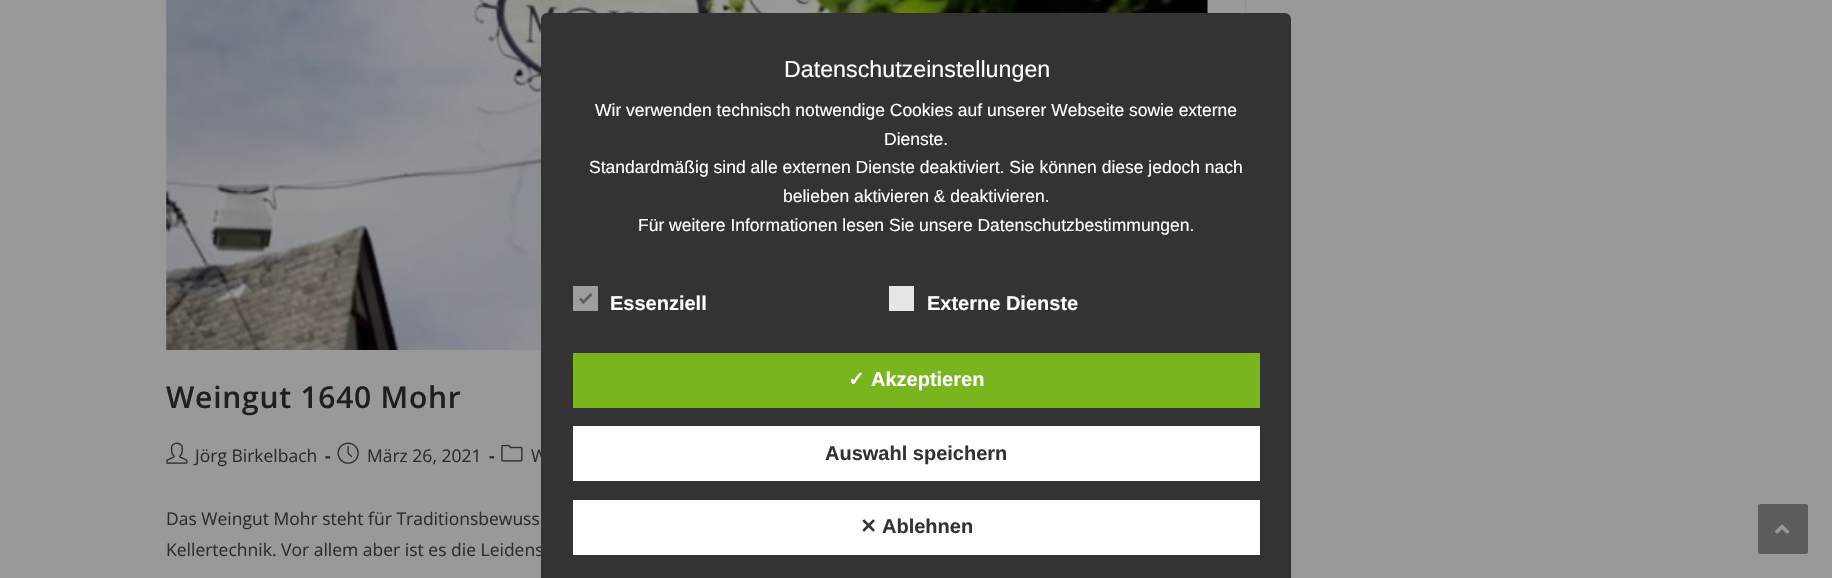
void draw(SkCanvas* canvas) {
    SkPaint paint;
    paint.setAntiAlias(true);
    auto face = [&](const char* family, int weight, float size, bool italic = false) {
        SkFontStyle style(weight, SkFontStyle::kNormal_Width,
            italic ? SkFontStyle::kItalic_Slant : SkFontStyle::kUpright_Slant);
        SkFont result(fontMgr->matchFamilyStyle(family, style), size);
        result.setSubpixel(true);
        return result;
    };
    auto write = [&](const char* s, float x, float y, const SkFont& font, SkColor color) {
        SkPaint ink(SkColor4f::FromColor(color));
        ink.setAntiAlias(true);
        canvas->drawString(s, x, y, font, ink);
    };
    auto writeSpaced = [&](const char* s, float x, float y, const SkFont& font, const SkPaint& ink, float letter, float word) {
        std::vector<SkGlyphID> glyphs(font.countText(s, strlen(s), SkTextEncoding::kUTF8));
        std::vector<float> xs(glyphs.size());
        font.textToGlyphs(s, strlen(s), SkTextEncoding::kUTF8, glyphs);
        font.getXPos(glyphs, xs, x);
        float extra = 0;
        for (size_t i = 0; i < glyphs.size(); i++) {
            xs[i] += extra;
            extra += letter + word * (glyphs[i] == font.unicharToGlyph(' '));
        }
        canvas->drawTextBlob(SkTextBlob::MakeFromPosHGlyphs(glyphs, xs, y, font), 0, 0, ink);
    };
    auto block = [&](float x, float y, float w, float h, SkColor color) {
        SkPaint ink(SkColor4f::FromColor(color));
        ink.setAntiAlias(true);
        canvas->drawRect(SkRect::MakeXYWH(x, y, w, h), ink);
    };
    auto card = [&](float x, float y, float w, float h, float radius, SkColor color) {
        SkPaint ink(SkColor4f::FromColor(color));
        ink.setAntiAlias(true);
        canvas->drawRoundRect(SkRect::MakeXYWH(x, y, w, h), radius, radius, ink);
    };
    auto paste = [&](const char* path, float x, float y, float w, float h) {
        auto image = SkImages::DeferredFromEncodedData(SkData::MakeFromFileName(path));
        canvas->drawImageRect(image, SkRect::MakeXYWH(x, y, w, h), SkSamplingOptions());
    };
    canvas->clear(SkColorSetRGB(153, 153, 153));
    block(1245, 0, 1, 13, SkColorSetRGB(145, 145, 145));
    paste("pic1.png", 166, 0, 1042, 350);
    auto kFont1 = face("Open Sans", 600, 30);
    paint.setColor(SkColorSetRGB(31, 31, 31));
    writeSpaced("Weingut 1640 Mohr", 166, 408, kFont1, paint, 0.75f, 0);
    paste("pic2.png", 166, 442, 22, 22);
    auto kFont2 = face("Open Sans", 400, 17.5f);
    write("Jörg Birkelbach", 195, 462, kFont2, SkColorSetRGB(44, 44, 44));
    auto kFont3 = face("Open Sans", 700, 17.5f);
    write("-", 325, 462, kFont3, SkColorSetRGB(44, 44, 44));
    paste("pic3.png", 337, 442, 22, 22);
    write("März 26, 2021", 367, 462, kFont2, SkColorSetRGB(44, 44, 44));
    write("-", 489, 462, kFont3, SkColorSetRGB(44, 44, 44));
    paste("pic4.png", 501, 444, 22, 18);
    write("W", 531, 462, kFont2, SkColorSetRGB(44, 44, 44));
    write("Das Weingut Mohr steht für Traditionsbewuss", 166, 525, kFont2, SkColorSetRGB(44, 44, 44));
    write("Kellertechnik. Vor allem aber ist es die Leidens", 166, 556, kFont2, SkColorSetRGB(44, 44, 44));
    card(541, 13, 750, 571, 6, SkColorSetRGB(51, 51, 51));
    auto kFont4 = face("Liberation Sans", 400, 23.25f);
    write("Datenschutzeinstellungen", 784, 77, kFont4, SK_ColorWHITE);
    auto kFont5 = face("Liberation Sans", 400, 17.5f);
    write("Wir verwenden technisch notwendige Cookies auf unserer Webseite sowie externe", 595, 116, kFont5, SK_ColorWHITE);
    write("Dienste.", 884, 145, kFont5, SK_ColorWHITE);
    write("Standardmäßig sind alle externen Dienste deaktiviert. Sie können diese jedoch nach", 589, 173, kFont5, SK_ColorWHITE);
    write("belieben aktivieren & deaktivieren.", 783, 202, kFont5, SK_ColorWHITE);
    write("Für weitere Informationen lesen Sie unsere Datenschutzbestimmungen.", 638, 231, kFont5, SK_ColorWHITE);
    block(573, 286, 25, 25, SkColorSetRGB(158, 158, 158));
    paint.setColor(SkColorSetRGB(94, 94, 94));
    canvas->drawPath(SkPathBuilder().moveTo(590.5f, 293).lineTo(592.5f, 295).lineTo(583.5f, 304).lineTo(581.5f, 302).close().detach(), paint);
    canvas->drawPath(SkPathBuilder().moveTo(581, 297.5f).lineTo(585, 302).lineTo(583.5f, 304).lineTo(579, 299.5f).close().detach(), paint);
    auto kFont6 = face("Liberation Sans", 700, 20);
    write("Essenziell", 610, 310, kFont6, SK_ColorWHITE);
    block(889, 286, 25, 25, SkColorSetRGB(230, 230, 230));
    write("Externe Dienste", 927, 310, kFont6, SK_ColorWHITE);
    block(573, 353, 687, 55, SkColorSetRGB(121, 181, 31));
    auto kFont7 = face("DejaVu Sans", 700, 20);
    write("✓", 848, 386, kFont7, SK_ColorWHITE);
    write("Akzeptieren", 871, 386, kFont6, SK_ColorWHITE);
    block(573, 426, 687, 55, SK_ColorWHITE);
    write("Auswahl speichern", 825, 460, kFont6, SkColorSetRGB(51, 51, 51));
    block(573, 500, 687, 55, SK_ColorWHITE);
    write("✕", 860, 533, kFont7, SkColorSetRGB(51, 51, 51));
    write("Ablehnen", 882, 533, kFont6, SkColorSetRGB(51, 51, 51));
    card(1758, 504, 50, 50, 2.5f, SkColorSetRGB(92, 92, 92));
    paste("pic5.png", 1775, 524, 15, 10);
}
